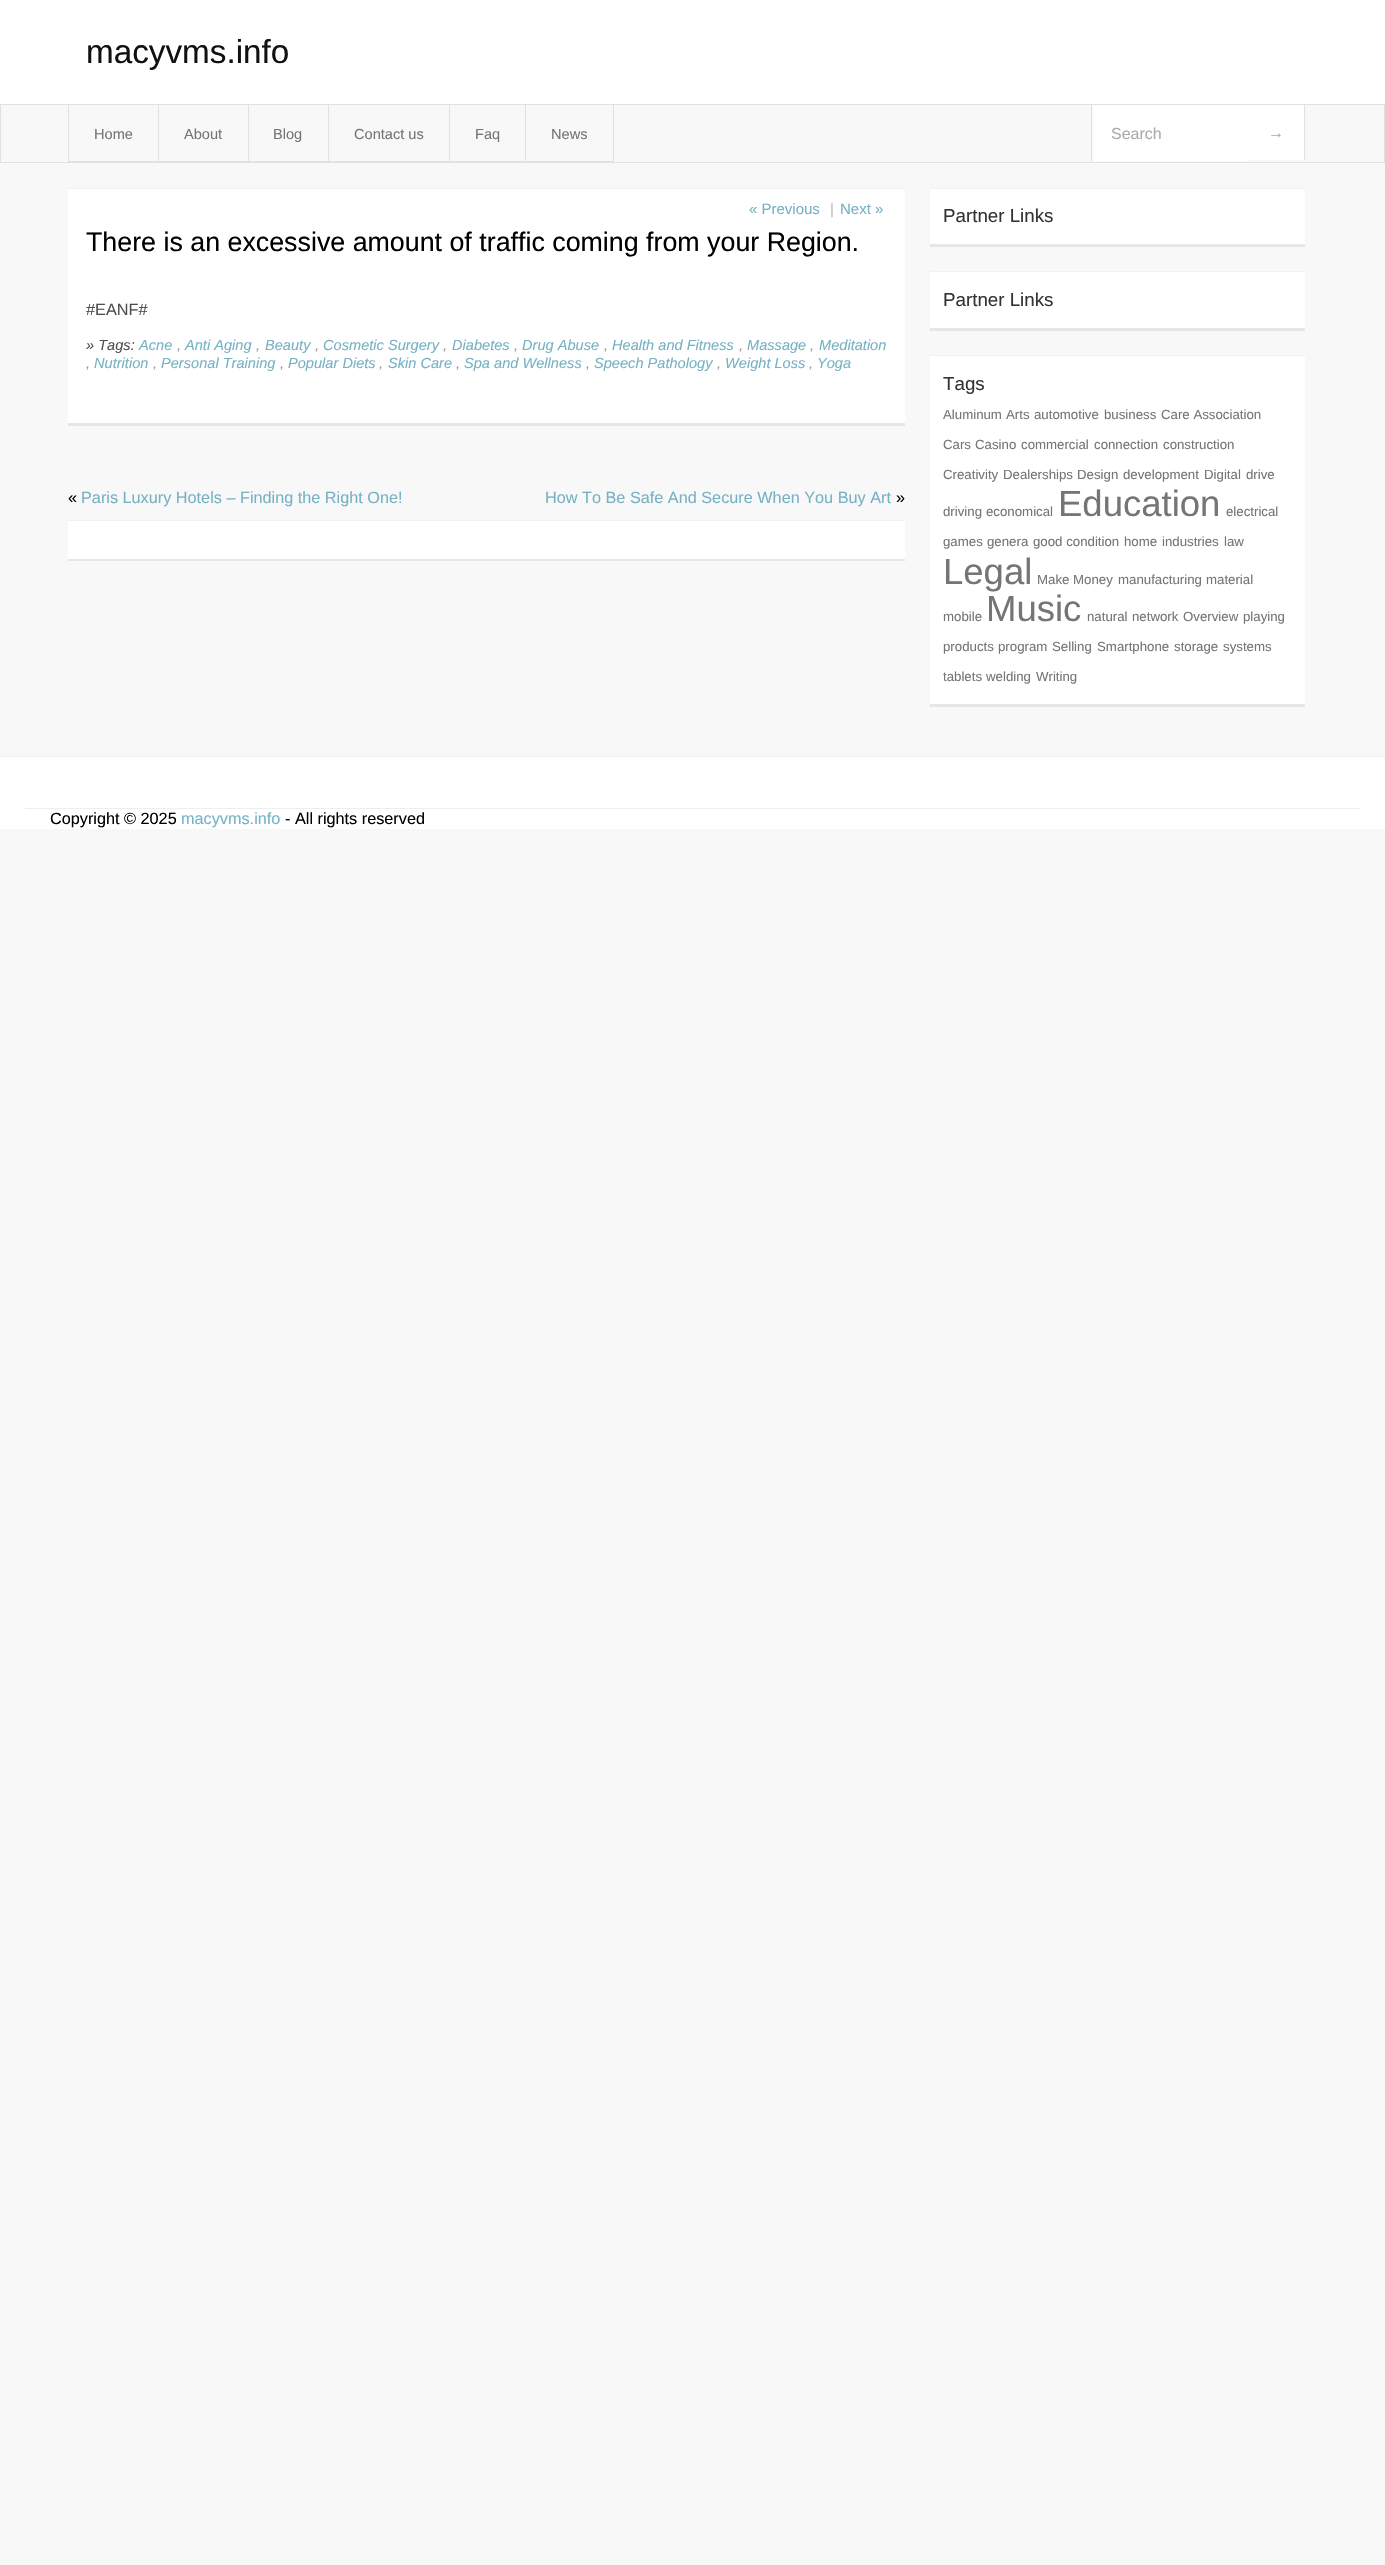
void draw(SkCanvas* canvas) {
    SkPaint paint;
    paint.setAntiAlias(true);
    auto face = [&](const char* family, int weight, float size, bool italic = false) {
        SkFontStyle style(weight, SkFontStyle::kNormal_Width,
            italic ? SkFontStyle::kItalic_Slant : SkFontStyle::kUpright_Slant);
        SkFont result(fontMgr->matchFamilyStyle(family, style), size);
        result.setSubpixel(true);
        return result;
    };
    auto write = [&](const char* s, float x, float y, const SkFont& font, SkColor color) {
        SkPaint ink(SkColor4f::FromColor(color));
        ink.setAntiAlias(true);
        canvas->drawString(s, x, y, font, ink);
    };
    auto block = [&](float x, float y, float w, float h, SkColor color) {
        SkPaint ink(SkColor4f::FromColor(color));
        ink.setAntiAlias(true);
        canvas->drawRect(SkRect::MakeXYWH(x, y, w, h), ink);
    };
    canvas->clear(SkColorSetRGB(248, 248, 248));
    block(0, 0, 1385, 104, SK_ColorWHITE);
    auto kFont1 = face("Liberation Sans", 400, 33.25f);
    write("macyvms.info", 86, 63, kFont1, SkColorSetRGB(17, 17, 17));
    paint.setStyle(SkPaint::kStroke_Style);
    paint.setStrokeWidth(1);
    paint.setColor(SkColorSetRGB(225, 225, 225));
    canvas->drawRect(SkRect::MakeXYWH(0.5f, 104.5f, 1384, 58), paint);
    block(68, 105, 1, 58, SkColorSetRGB(225, 225, 225));
    block(158, 105, 1, 58, SkColorSetRGB(225, 225, 225));
    block(69, 161, 90, 1, SkColorSetRGB(225, 225, 225));
    auto kFont2 = face("Liberation Sans", 400, 14.6f);
    write("Home", 94, 139, kFont2, SkColorSetRGB(118, 117, 117));
    block(248, 105, 1, 58, SkColorSetRGB(225, 225, 225));
    block(159, 161, 90, 1, SkColorSetRGB(225, 225, 225));
    write("About", 184, 139, kFont2, SkColorSetRGB(118, 117, 117));
    block(328, 105, 1, 58, SkColorSetRGB(225, 225, 225));
    block(249, 161, 80, 1, SkColorSetRGB(225, 225, 225));
    write("Blog", 273, 139, kFont2, SkColorSetRGB(118, 117, 117));
    block(449, 105, 1, 58, SkColorSetRGB(225, 225, 225));
    block(329, 161, 121, 1, SkColorSetRGB(225, 225, 225));
    write("Contact us", 354, 139, kFont2, SkColorSetRGB(118, 117, 117));
    block(525, 105, 1, 58, SkColorSetRGB(225, 225, 225));
    block(450, 161, 76, 1, SkColorSetRGB(225, 225, 225));
    write("Faq", 475, 139, kFont2, SkColorSetRGB(118, 117, 117));
    block(613, 105, 1, 58, SkColorSetRGB(225, 225, 225));
    block(526, 161, 88, 1, SkColorSetRGB(225, 225, 225));
    write("News", 551, 139, kFont2, SkColorSetRGB(118, 117, 117));
    block(1093, 105, 156, 56, SK_ColorWHITE);
    block(1091, 105, 1, 56, SkColorSetRGB(225, 225, 225));
    auto kFont3 = face("Liberation Sans", 400, 16);
    write("Search", 1111, 139, kFont3, SkColorSetRGB(170, 170, 170));
    block(1249, 105, 55, 55, SK_ColorWHITE);
    block(1304, 105, 1, 55, SkColorSetRGB(225, 225, 225));
    write("→", 1268, 138, kFont3, SkColorSetRGB(170, 170, 170));
    block(68, 189, 837, 234, SK_ColorWHITE);
    auto kFont4 = face("Liberation Sans", 400, 15);
    write("« Previous", 749, 214, kFont4, SkColorSetRGB(118, 178, 196));
    write("|", 830, 214, kFont4, SkColorSetRGB(187, 187, 187));
    write("Next »", 840, 214, kFont4, SkColorSetRGB(118, 178, 196));
    block(68, 188, 837, 1, SkColorSetRGB(241, 241, 241));
    block(68, 423, 837, 3, SkColorSetRGB(230, 230, 230));
    auto kFont5 = face("Liberation Sans", 400, 26.8f);
    write("There is an excessive amount of traffic coming from your Region.", 86, 251, kFont5, SK_ColorBLACK);
    auto kFont6 = face("Liberation Sans", 400, 16.25f);
    write("#EANF#", 86, 315, kFont6, SkColorSetRGB(79, 79, 79));
    auto kFont7 = face("Liberation Sans", 400, 14.6f, true);
    write("» Tags:", 86, 350, kFont7, SkColorSetRGB(79, 79, 79));
    write("Acne", 139, 350, kFont7, SkColorSetRGB(118, 178, 196));
    write(",", 177, 350, kFont7, SkColorSetRGB(153, 153, 153));
    write("Anti Aging", 185, 350, kFont7, SkColorSetRGB(118, 178, 196));
    write(",", 256, 350, kFont7, SkColorSetRGB(153, 153, 153));
    write("Beauty", 265, 350, kFont7, SkColorSetRGB(118, 178, 196));
    write(",", 315, 350, kFont7, SkColorSetRGB(153, 153, 153));
    write("Cosmetic Surgery", 323, 350, kFont7, SkColorSetRGB(118, 178, 196));
    write(",", 443, 350, kFont7, SkColorSetRGB(153, 153, 153));
    write("Diabetes", 452, 350, kFont7, SkColorSetRGB(118, 178, 196));
    write(",", 514, 350, kFont7, SkColorSetRGB(153, 153, 153));
    write("Drug Abuse", 522, 350, kFont7, SkColorSetRGB(118, 178, 196));
    write(",", 604, 350, kFont7, SkColorSetRGB(153, 153, 153));
    write("Health and Fitness", 612, 350, kFont7, SkColorSetRGB(118, 178, 196));
    write(",", 739, 350, kFont7, SkColorSetRGB(153, 153, 153));
    write("Massage", 747, 350, kFont7, SkColorSetRGB(118, 178, 196));
    write(",", 810, 350, kFont7, SkColorSetRGB(153, 153, 153));
    write("Meditation", 819, 350, kFont7, SkColorSetRGB(118, 178, 196));
    write(",", 86, 368, kFont7, SkColorSetRGB(153, 153, 153));
    write("Nutrition", 94, 368, kFont7, SkColorSetRGB(118, 178, 196));
    write(",", 153, 368, kFont7, SkColorSetRGB(153, 153, 153));
    write("Personal Training", 161, 368, kFont7, SkColorSetRGB(118, 178, 196));
    write(",", 280, 368, kFont7, SkColorSetRGB(153, 153, 153));
    write("Popular Diets", 288, 368, kFont7, SkColorSetRGB(118, 178, 196));
    write(",", 379, 368, kFont7, SkColorSetRGB(153, 153, 153));
    write("Skin Care", 388, 368, kFont7, SkColorSetRGB(118, 178, 196));
    write(",", 456, 368, kFont7, SkColorSetRGB(153, 153, 153));
    write("Spa and Wellness", 464, 368, kFont7, SkColorSetRGB(118, 178, 196));
    write(",", 586, 368, kFont7, SkColorSetRGB(153, 153, 153));
    write("Speech Pathology", 594, 368, kFont7, SkColorSetRGB(118, 178, 196));
    write(",", 717, 368, kFont7, SkColorSetRGB(153, 153, 153));
    write("Weight Loss", 725, 368, kFont7, SkColorSetRGB(118, 178, 196));
    write(",", 809, 368, kFont7, SkColorSetRGB(153, 153, 153));
    write("Yoga", 817, 368, kFont7, SkColorSetRGB(118, 178, 196));
    write("«", 68, 503, kFont6, SK_ColorBLACK);
    write("Paris Luxury Hotels – Finding the Right One!", 81, 503, kFont6, SkColorSetRGB(118, 178, 196));
    write("How To Be Safe And Secure When You Buy Art", 545, 503, kFont6, SkColorSetRGB(118, 178, 196));
    write("»", 896, 503, kFont6, SK_ColorBLACK);
    block(68, 521, 837, 38, SK_ColorWHITE);
    block(68, 520, 837, 1, SkColorSetRGB(241, 241, 241));
    block(68, 559, 837, 2, SkColorSetRGB(230, 230, 230));
    block(930, 189, 375, 55, SK_ColorWHITE);
    block(930, 188, 375, 1, SkColorSetRGB(241, 241, 241));
    block(930, 244, 375, 3, SkColorSetRGB(230, 230, 230));
    auto kFont8 = face("Liberation Sans", 400, 18.75f);
    write("Partner Links", 943, 222, kFont8, SkColorSetRGB(51, 51, 51));
    block(930, 272, 375, 56, SK_ColorWHITE);
    block(930, 271, 375, 1, SkColorSetRGB(241, 241, 241));
    block(930, 328, 375, 3, SkColorSetRGB(230, 230, 230));
    write("Partner Links", 943, 306, kFont8, SkColorSetRGB(51, 51, 51));
    block(930, 356, 375, 348, SK_ColorWHITE);
    block(930, 355, 375, 1, SkColorSetRGB(241, 241, 241));
    block(930, 704, 375, 3, SkColorSetRGB(230, 230, 230));
    write("Tags", 943, 390, kFont8, SkColorSetRGB(51, 51, 51));
    auto kFont9 = face("Liberation Sans", 400, 13.25f);
    write("Aluminum", 943, 419, kFont9, SkColorSetRGB(118, 117, 117));
    write("Arts", 1006, 419, kFont9, SkColorSetRGB(118, 117, 117));
    write("automotive", 1034, 419, kFont9, SkColorSetRGB(118, 117, 117));
    write("business", 1104, 419, kFont9, SkColorSetRGB(118, 117, 117));
    write("Care Association", 1161, 419, kFont9, SkColorSetRGB(118, 117, 117));
    write("Cars", 943, 449, kFont9, SkColorSetRGB(118, 117, 117));
    write("Casino", 975, 449, kFont9, SkColorSetRGB(118, 117, 117));
    write("commercial", 1021, 449, kFont9, SkColorSetRGB(118, 117, 117));
    write("connection", 1094, 449, kFont9, SkColorSetRGB(118, 117, 117));
    write("construction", 1163, 449, kFont9, SkColorSetRGB(118, 117, 117));
    write("Creativity", 943, 479, kFont9, SkColorSetRGB(118, 117, 117));
    write("Dealerships", 1003, 479, kFont9, SkColorSetRGB(118, 117, 117));
    write("Design", 1077, 479, kFont9, SkColorSetRGB(118, 117, 117));
    write("development", 1123, 479, kFont9, SkColorSetRGB(118, 117, 117));
    write("Digital", 1204, 479, kFont9, SkColorSetRGB(118, 117, 117));
    write("drive", 1246, 479, kFont9, SkColorSetRGB(118, 117, 117));
    write("driving", 943, 516, kFont9, SkColorSetRGB(118, 117, 117));
    write("economical", 986, 516, kFont9, SkColorSetRGB(118, 117, 117));
    auto kFont10 = face("Liberation Sans", 400, 36.5f);
    write("Education", 1058, 516, kFont10, SkColorSetRGB(118, 117, 117));
    write("electrical", 1226, 516, kFont9, SkColorSetRGB(118, 117, 117));
    write("games", 943, 546, kFont9, SkColorSetRGB(118, 117, 117));
    write("genera", 987, 546, kFont9, SkColorSetRGB(118, 117, 117));
    write("good condition", 1033, 546, kFont9, SkColorSetRGB(118, 117, 117));
    write("home", 1124, 546, kFont9, SkColorSetRGB(118, 117, 117));
    write("industries", 1162, 546, kFont9, SkColorSetRGB(118, 117, 117));
    write("law", 1224, 546, kFont9, SkColorSetRGB(118, 117, 117));
    write("Legal", 943, 584, kFont10, SkColorSetRGB(118, 117, 117));
    write("Make Money", 1037, 584, kFont9, SkColorSetRGB(118, 117, 117));
    write("manufacturing", 1118, 584, kFont9, SkColorSetRGB(118, 117, 117));
    write("material", 1206, 584, kFont9, SkColorSetRGB(118, 117, 117));
    write("mobile", 943, 621, kFont9, SkColorSetRGB(118, 117, 117));
    write("Music", 986, 621, kFont10, SkColorSetRGB(118, 117, 117));
    write("natural", 1087, 621, kFont9, SkColorSetRGB(118, 117, 117));
    write("network", 1132, 621, kFont9, SkColorSetRGB(118, 117, 117));
    write("Overview", 1183, 621, kFont9, SkColorSetRGB(118, 117, 117));
    write("playing", 1243, 621, kFont9, SkColorSetRGB(118, 117, 117));
    write("products", 943, 651, kFont9, SkColorSetRGB(118, 117, 117));
    write("program", 998, 651, kFont9, SkColorSetRGB(118, 117, 117));
    write("Selling", 1052, 651, kFont9, SkColorSetRGB(118, 117, 117));
    write("Smartphone", 1097, 651, kFont9, SkColorSetRGB(118, 117, 117));
    write("storage", 1174, 651, kFont9, SkColorSetRGB(118, 117, 117));
    write("systems", 1223, 651, kFont9, SkColorSetRGB(118, 117, 117));
    write("tablets", 943, 681, kFont9, SkColorSetRGB(118, 117, 117));
    write("welding", 986, 681, kFont9, SkColorSetRGB(118, 117, 117));
    write("Writing", 1036, 681, kFont9, SkColorSetRGB(118, 117, 117));
    block(0, 757, 1385, 72, SK_ColorWHITE);
    block(0, 756, 1385, 1, SkColorSetRGB(238, 238, 238));
    block(25, 808, 1335, 1, SkColorSetRGB(238, 238, 238));
    write("Copyright © 2025", 50, 824, kFont6, SK_ColorBLACK);
    write("macyvms.info", 181, 824, kFont6, SkColorSetRGB(118, 178, 196));
    write("- All rights reserved", 285, 824, kFont6, SK_ColorBLACK);
}
